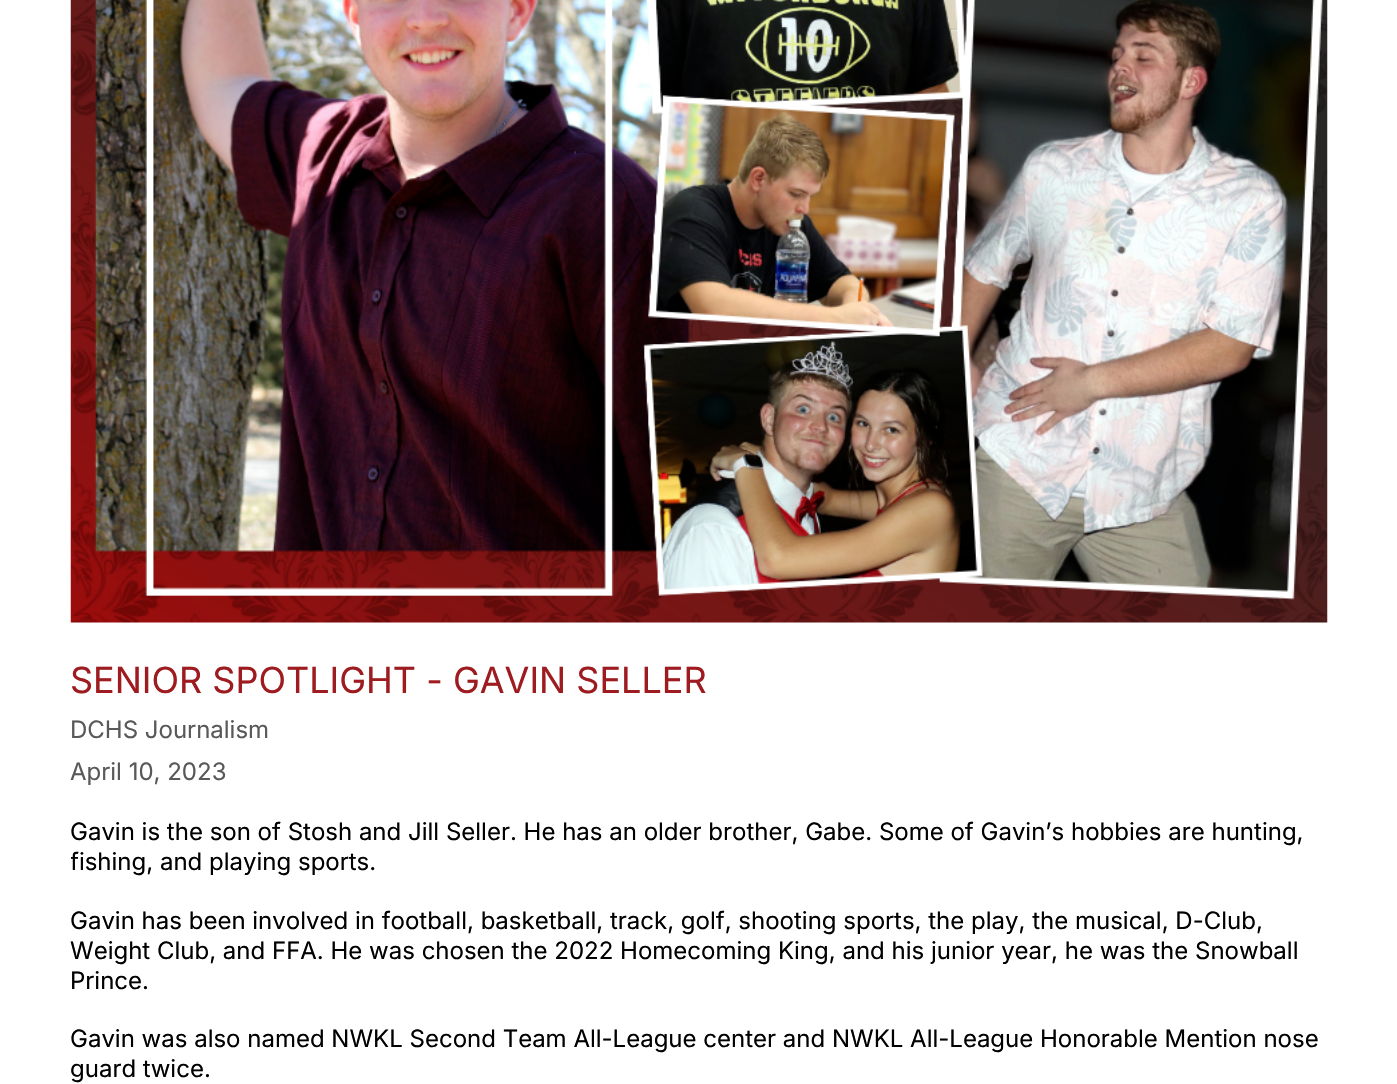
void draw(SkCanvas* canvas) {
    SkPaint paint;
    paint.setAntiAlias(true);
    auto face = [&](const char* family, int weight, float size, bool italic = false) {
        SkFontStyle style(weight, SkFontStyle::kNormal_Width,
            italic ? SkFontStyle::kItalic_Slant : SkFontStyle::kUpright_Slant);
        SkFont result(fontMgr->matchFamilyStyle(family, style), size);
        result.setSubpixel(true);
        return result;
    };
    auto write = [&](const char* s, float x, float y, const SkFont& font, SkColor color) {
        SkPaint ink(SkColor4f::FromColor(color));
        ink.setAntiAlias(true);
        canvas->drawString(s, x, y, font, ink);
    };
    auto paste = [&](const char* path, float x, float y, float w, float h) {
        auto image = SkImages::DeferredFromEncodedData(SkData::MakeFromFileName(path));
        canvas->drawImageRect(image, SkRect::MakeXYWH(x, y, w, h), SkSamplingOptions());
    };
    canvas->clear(SK_ColorWHITE);
    paste("pic1.png", 70, 0, 1258, 623);
    auto kFont1 = face("Inter", 400, 36);
    write("SENIOR SPOTLIGHT - GAVIN SELLER", 70, 693, kFont1, SkColorSetRGB(158, 27, 31));
    auto kFont2 = face("Inter", 400, 24);
    write("DCHS Journalism", 70, 738, kFont2, SkColorSetRGB(89, 89, 89));
    write("April 10, 2023", 70, 780, kFont2, SkColorSetRGB(89, 89, 89));
    write("Gavin is the son of Stosh and Jill Seller. He has an older brother, Gabe. Some of Gavin’s hobbies are hunting,", 70, 840, kFont2, SK_ColorBLACK);
    canvas->save();
    canvas->clipRect(SkRect::MakeXYWH(71, 816, 1257, 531));
    write("fishing, and playing sports.", 70, 870, kFont2, SK_ColorBLACK);
    canvas->restore();
    write("Gavin has been involved in football, basketball, track, golf, shooting sports, the play, the musical, D-Club,", 70, 929, kFont2, SK_ColorBLACK);
    write("Weight Club, and FFA. He was chosen the 2022 Homecoming King, and his junior year, he was the Snowball", 70, 959, kFont2, SK_ColorBLACK);
    write("Prince.", 70, 989, kFont2, SK_ColorBLACK);
    write("Gavin was also named NWKL Second Team All-League center and NWKL All-League Honorable Mention nose", 70, 1047, kFont2, SK_ColorBLACK);
    write("guard twice.", 70, 1077, kFont2, SK_ColorBLACK);
}
